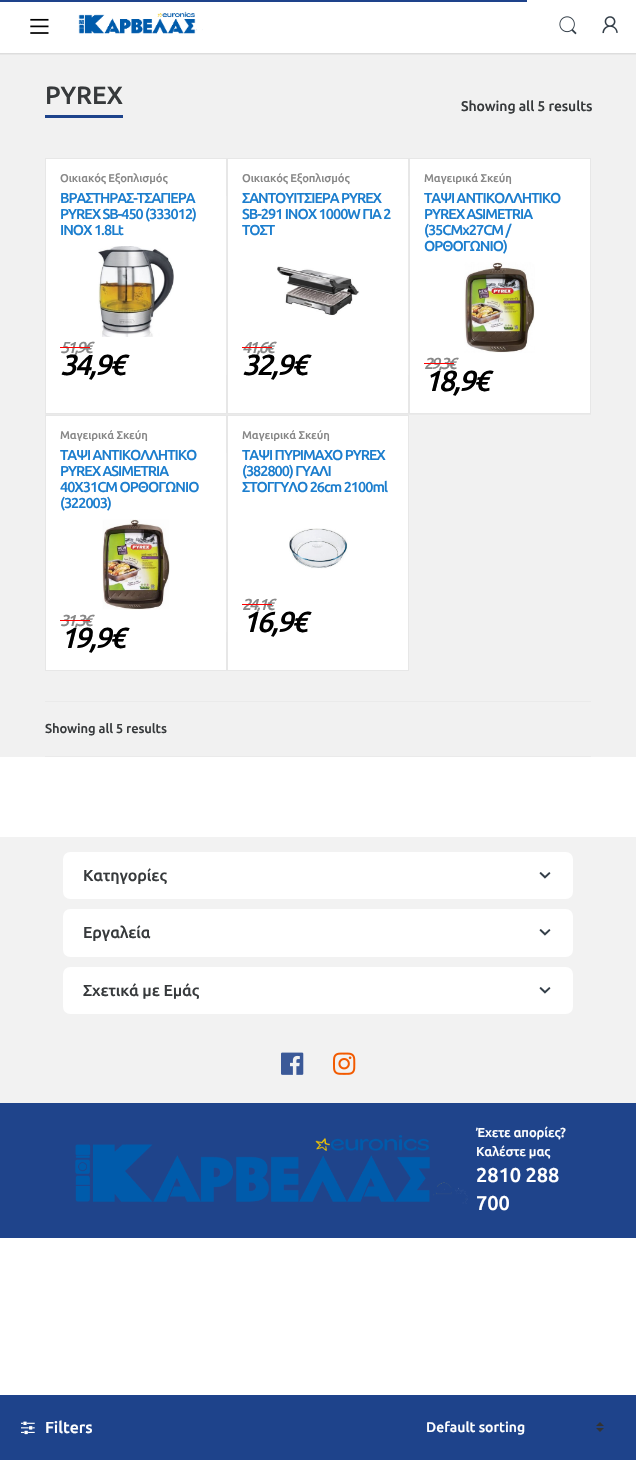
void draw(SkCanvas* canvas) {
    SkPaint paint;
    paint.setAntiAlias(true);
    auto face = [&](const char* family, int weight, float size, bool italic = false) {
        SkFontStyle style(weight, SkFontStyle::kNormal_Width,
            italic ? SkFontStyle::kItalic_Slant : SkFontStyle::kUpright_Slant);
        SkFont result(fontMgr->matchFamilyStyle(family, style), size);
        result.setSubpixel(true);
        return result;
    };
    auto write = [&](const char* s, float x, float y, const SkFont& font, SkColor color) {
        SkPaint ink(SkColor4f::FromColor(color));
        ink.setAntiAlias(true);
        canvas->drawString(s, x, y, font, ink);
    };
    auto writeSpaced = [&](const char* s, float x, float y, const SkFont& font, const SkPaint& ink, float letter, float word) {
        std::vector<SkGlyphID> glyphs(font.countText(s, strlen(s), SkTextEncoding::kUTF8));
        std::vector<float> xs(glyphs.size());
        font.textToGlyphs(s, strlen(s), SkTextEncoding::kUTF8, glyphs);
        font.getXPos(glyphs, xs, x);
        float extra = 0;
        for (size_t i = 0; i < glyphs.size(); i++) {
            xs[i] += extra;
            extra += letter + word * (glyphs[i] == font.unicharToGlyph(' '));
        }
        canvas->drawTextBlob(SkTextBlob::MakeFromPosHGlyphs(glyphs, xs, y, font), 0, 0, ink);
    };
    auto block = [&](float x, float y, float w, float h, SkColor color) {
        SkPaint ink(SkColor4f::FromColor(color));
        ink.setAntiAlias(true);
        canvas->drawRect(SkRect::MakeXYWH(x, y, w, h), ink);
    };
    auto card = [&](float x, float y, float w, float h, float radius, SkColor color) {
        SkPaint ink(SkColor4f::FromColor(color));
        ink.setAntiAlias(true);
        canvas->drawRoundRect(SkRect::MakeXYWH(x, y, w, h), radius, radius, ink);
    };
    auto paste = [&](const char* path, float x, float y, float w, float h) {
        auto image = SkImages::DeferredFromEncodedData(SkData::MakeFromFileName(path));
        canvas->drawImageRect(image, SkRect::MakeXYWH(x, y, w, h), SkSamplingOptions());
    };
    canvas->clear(SK_ColorWHITE);
    block(0, 0, 527, 2, SkColorSetRGB(30, 67, 139));
    block(0, 54, 636, 1, SkColorSetRGB(231, 231, 231));
    block(0, 53, 636, 1, SkColorSetRGB(221, 221, 221));
    paste("pic1.png", 30, 18, 19, 16);
    paste("pic2.png", 78, 11, 125, 23);
    paste("pic3.png", 559, 16, 18, 19);
    paste("pic4.png", 602, 16, 16, 18);
    block(0, 55, 636, 702, SkColorSetRGB(241, 241, 241));
    block(45, 115, 78, 3, SkColorSetRGB(29, 67, 139));
    auto kFont1 = face("Ubuntu", 500, 25);
    paint.setColor(SkColorSetRGB(55, 58, 60));
    writeSpaced("PYREX", 45, 104, kFont1, paint, -0.1f, 0);
    auto kFont2 = face("Ubuntu", 500, 14);
    writeSpaced("Showing all 5 results", 461, 111, kFont2, paint, -0.1f, 0);
    block(45, 414, 546, 1, SkColorSetRGB(234, 234, 234));
    paint.setColor(SK_ColorWHITE);
    canvas->drawRect(SkRect::MakeXYWH(45.5f, 158.5f, 181, 255), paint);
    paint.setStyle(SkPaint::kStroke_Style);
    paint.setStrokeWidth(1);
    paint.setColor(SkColorSetRGB(231, 231, 231));
    canvas->drawRect(SkRect::MakeXYWH(45.5f, 158.5f, 181, 255), paint);
    auto kFont3 = face("Ubuntu", 500, 11.25f);
    paint.setStyle(SkPaint::kFill_Style);
    paint.setColor(SkColorSetRGB(135, 135, 135));
    writeSpaced("Οικιακός Εξοπλισμός", 60, 182, kFont3, paint, -0.1f, 0);
    auto kFont4 = face("Ubuntu", 500, 14.4f);
    paint.setColor(SkColorSetRGB(28, 126, 206));
    writeSpaced("ΒΡΑΣΤΗΡΑΣ-ΤΣΑΓΙΕΡΑ", 60, 203, kFont4, paint, -1, 0);
    writeSpaced("PYREX SB-450 (333012)", 60, 219, kFont4, paint, -1, 0);
    writeSpaced("INOX 1.8Lt", 60, 235, kFont4, paint, -1, 0);
    paste("pic5.png", 98, 246, 76, 91);
    auto kFont5 = face("Ubuntu", 500, 16, true);
    paint.setColor(SkColorSetRGB(135, 135, 135));
    writeSpaced("51,9€", 60, 353, kFont5, paint, -2, 0);
    block(60, 347, 30, 1, SkColorSetRGB(255, 0, 0));
    auto kFont6 = face("Ubuntu", 500, 29, true);
    paint.setColor(SK_ColorBLACK);
    writeSpaced("34,9€", 60, 375, kFont6, paint, -2, 0);
    block(226, 196, 1, 179, SkColorSetRGB(234, 234, 234));
    paint.setColor(SK_ColorWHITE);
    canvas->drawRect(SkRect::MakeXYWH(227.5f, 158.5f, 181, 255), paint);
    paint.setStyle(SkPaint::kStroke_Style);
    paint.setColor(SkColorSetRGB(231, 231, 231));
    canvas->drawRect(SkRect::MakeXYWH(227.5f, 158.5f, 181, 255), paint);
    paint.setStyle(SkPaint::kFill_Style);
    paint.setColor(SkColorSetRGB(135, 135, 135));
    writeSpaced("Οικιακός Εξοπλισμός", 242, 182, kFont3, paint, -0.1f, 0);
    paint.setColor(SkColorSetRGB(28, 126, 206));
    writeSpaced("ΣΑΝΤΟΥΙΤΣΙΕΡΑ PYREX", 242, 203, kFont4, paint, -1, 0);
    writeSpaced("SB-291 INOX 1000W ΓΙΑ 2", 242, 219, kFont4, paint, -1, 0);
    writeSpaced("ΤΟΣΤ", 242, 235, kFont4, paint, -1, 0);
    paste("pic6.png", 277, 266, 83, 50);
    paint.setColor(SkColorSetRGB(135, 135, 135));
    writeSpaced("41,6€", 242, 353, kFont5, paint, -2, 0);
    block(242, 347, 30, 1, SkColorSetRGB(255, 0, 0));
    paint.setColor(SK_ColorBLACK);
    writeSpaced("32,9€", 242, 375, kFont6, paint, -2, 0);
    block(408, 196, 1, 179, SkColorSetRGB(234, 234, 234));
    paint.setColor(SK_ColorWHITE);
    canvas->drawRect(SkRect::MakeXYWH(409.5f, 158.5f, 181, 255), paint);
    paint.setStyle(SkPaint::kStroke_Style);
    paint.setColor(SkColorSetRGB(231, 231, 231));
    canvas->drawRect(SkRect::MakeXYWH(409.5f, 158.5f, 181, 255), paint);
    paint.setStyle(SkPaint::kFill_Style);
    paint.setColor(SkColorSetRGB(135, 135, 135));
    writeSpaced("Μαγειρικά Σκεύη", 424, 182, kFont3, paint, -0.1f, 0);
    paint.setColor(SkColorSetRGB(28, 126, 206));
    writeSpaced("ΤΑΨΙ ΑΝΤΙΚΟΛΛΗΤΙΚΟ", 424, 203, kFont4, paint, -1, 0);
    writeSpaced("PYREX ASIMETRIA", 424, 219, kFont4, paint, -1, 0);
    writeSpaced("(35CMx27CM /", 424, 235, kFont4, paint, -1, 0);
    writeSpaced("ΟΡΘΟΓΩΝΙΟ)", 424, 251, kFont4, paint, -1, 0);
    paste("pic7.png", 464, 262, 71, 91);
    paint.setColor(SkColorSetRGB(135, 135, 135));
    writeSpaced("29,3€", 424, 369, kFont5, paint, -2, 0);
    block(424, 363, 30, 1, SkColorSetRGB(255, 0, 0));
    paint.setColor(SK_ColorBLACK);
    writeSpaced("18,9€", 424, 391, kFont6, paint, -2, 0);
    paint.setColor(SK_ColorWHITE);
    canvas->drawRect(SkRect::MakeXYWH(45.5f, 415.5f, 181, 255), paint);
    paint.setStyle(SkPaint::kStroke_Style);
    paint.setColor(SkColorSetRGB(231, 231, 231));
    canvas->drawRect(SkRect::MakeXYWH(45.5f, 415.5f, 181, 255), paint);
    paint.setStyle(SkPaint::kFill_Style);
    paint.setColor(SkColorSetRGB(135, 135, 135));
    writeSpaced("Μαγειρικά Σκεύη", 60, 439, kFont3, paint, -0.1f, 0);
    paint.setColor(SkColorSetRGB(28, 126, 206));
    writeSpaced("ΤΑΨΙ ΑΝΤΙΚΟΛΛΗΤΙΚΟ", 60, 460, kFont4, paint, -1, 0);
    writeSpaced("PYREX ASIMETRIA", 60, 476, kFont4, paint, -1, 0);
    writeSpaced("40X31CM ΟΡΘΟΓΩΝΙΟ", 60, 492, kFont4, paint, -1, 0);
    writeSpaced("(322003)", 60, 508, kFont4, paint, -1, 0);
    paste("pic8.png", 102, 519, 68, 91);
    paint.setColor(SkColorSetRGB(135, 135, 135));
    writeSpaced("31,3€", 60, 626, kFont5, paint, -2, 0);
    block(60, 620, 30, 1, SkColorSetRGB(255, 0, 0));
    paint.setColor(SK_ColorBLACK);
    writeSpaced("19,9€", 60, 648, kFont6, paint, -2, 0);
    block(226, 453, 1, 179, SkColorSetRGB(234, 234, 234));
    paint.setColor(SK_ColorWHITE);
    canvas->drawRect(SkRect::MakeXYWH(227.5f, 415.5f, 181, 255), paint);
    paint.setStyle(SkPaint::kStroke_Style);
    paint.setColor(SkColorSetRGB(231, 231, 231));
    canvas->drawRect(SkRect::MakeXYWH(227.5f, 415.5f, 181, 255), paint);
    paint.setStyle(SkPaint::kFill_Style);
    paint.setColor(SkColorSetRGB(135, 135, 135));
    writeSpaced("Μαγειρικά Σκεύη", 242, 439, kFont3, paint, -0.1f, 0);
    paint.setColor(SkColorSetRGB(28, 126, 206));
    writeSpaced("ΤΑΨΙ ΠΥΡΙΜΑΧΟ PYREX", 242, 460, kFont4, paint, -1, 0);
    writeSpaced("(382800) ΓΥΑΛΙ", 242, 476, kFont4, paint, -1, 0);
    writeSpaced("ΣΤΟΓΓΥΛΟ 26cm 2100ml", 242, 492, kFont4, paint, -1, 0);
    paste("pic9.png", 289, 528, 59, 41);
    paint.setColor(SkColorSetRGB(135, 135, 135));
    writeSpaced("24,1€", 242, 610, kFont5, paint, -2, 0);
    block(242, 604, 30, 1, SkColorSetRGB(255, 0, 0));
    paint.setColor(SK_ColorBLACK);
    writeSpaced("16,9€", 242, 632, kFont6, paint, -2, 0);
    block(45, 701, 546, 1, SkColorSetRGB(234, 234, 234));
    block(45, 756, 546, 1, SkColorSetRGB(234, 234, 234));
    auto kFont7 = face("Ubuntu", 500, 13);
    paint.setColor(SkColorSetRGB(55, 58, 60));
    writeSpaced("Showing all 5 results", 45, 733, kFont7, paint, -0.1f, 0);
    block(0, 1395, 636, 65, SkColorSetRGB(30, 67, 139));
    paste("pic10.png", 21, 1421, 14, 14);
    auto kFont8 = face("Ubuntu", 500, 16);
    write("Filters", 45, 1433, kFont8, SK_ColorWHITE);
    paste("pic11.png", 596, 1422, 8, 10);
    write("Default sorting", 426, 1432, kFont2, SK_ColorWHITE);
    block(0, 837, 636, 266, SkColorSetRGB(242, 242, 242));
    card(63, 852, 510, 47, 7, SK_ColorWHITE);
    writeSpaced("Κατηγορίες", 83, 881, kFont8, paint, -0.1f, 0);
    paste("pic12.png", 539, 872, 12, 7);
    card(63, 909, 510, 48, 7, SK_ColorWHITE);
    writeSpaced("Εργαλεία", 83, 938, kFont8, paint, -0.1f, 0);
    paste("pic12.png", 539, 929, 12, 7);
    card(63, 967, 510, 47, 7, SK_ColorWHITE);
    writeSpaced("Σχετικά με Εμάς", 83, 996, kFont8, paint, -0.1f, 0);
    paste("pic12.png", 539, 987, 12, 7);
    paste("pic13.png", 281, 1052, 23, 23);
    paste("pic14.png", 333, 1052, 23, 23);
    block(0, 1103, 636, 135, SkColorSetRGB(31, 68, 139));
    paste("pic15.png", 75, 1135, 393, 69);
    paint.setColor(SK_ColorWHITE);
    writeSpaced("Έχετε απορίες?", 476, 1137, kFont7, paint, -0.1f, 0);
    writeSpaced("Καλέστε μας", 476, 1156, kFont7, paint, -0.1f, 0);
    auto kFont9 = face("Ubuntu", 500, 20);
    writeSpaced("2810 288", 476, 1182, kFont9, paint, -0.1f, 0);
    writeSpaced("700", 476, 1210, kFont9, paint, -0.1f, 0);
}
